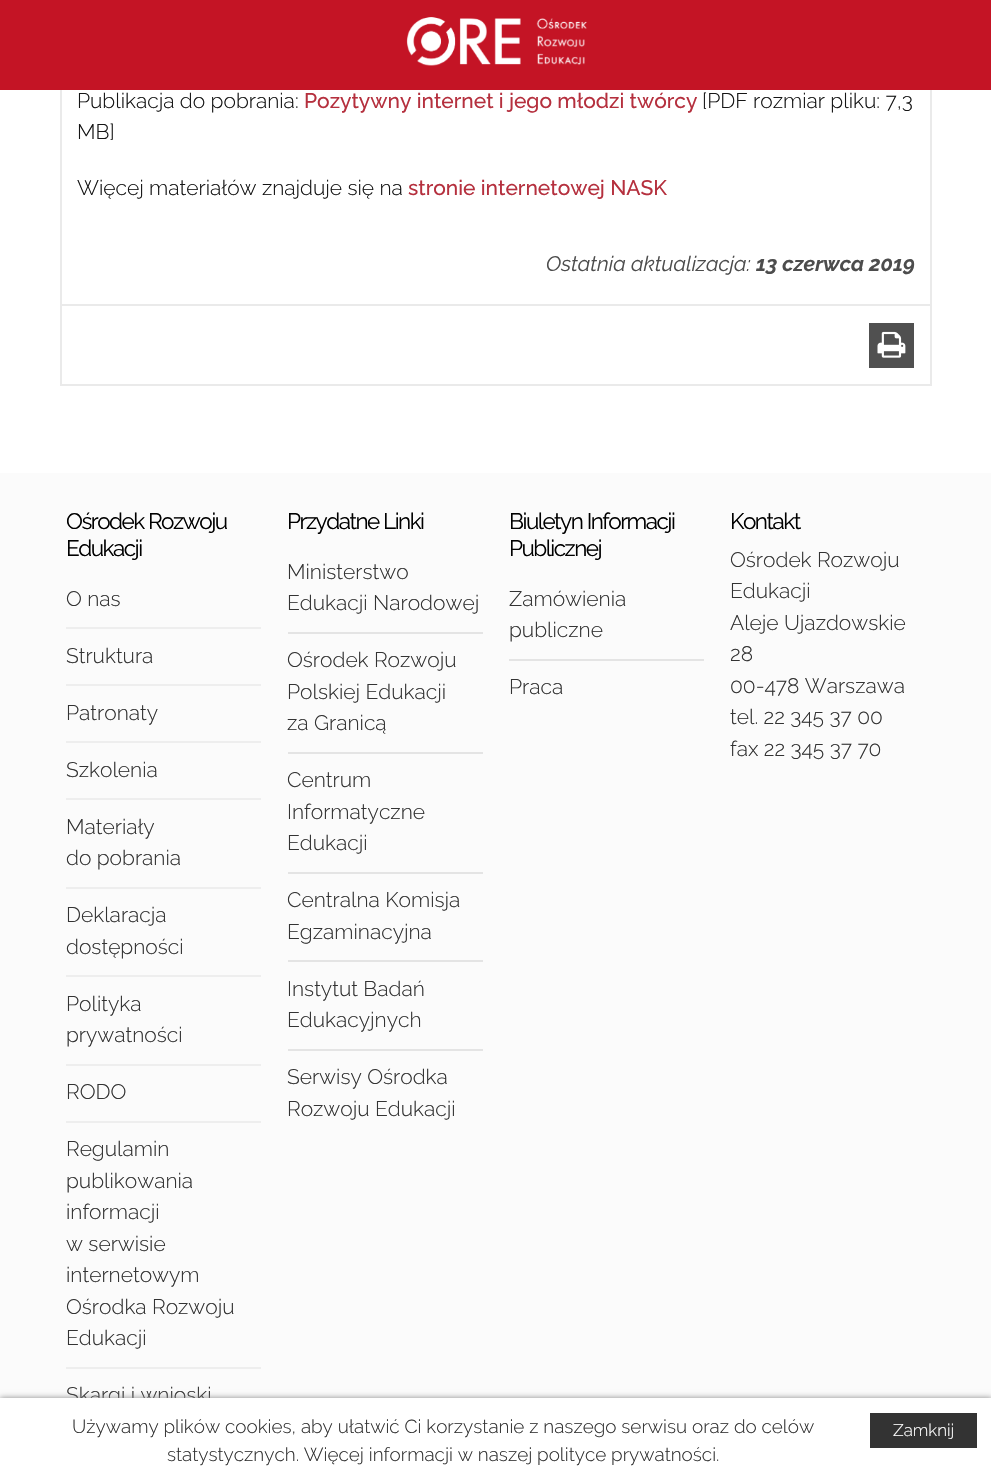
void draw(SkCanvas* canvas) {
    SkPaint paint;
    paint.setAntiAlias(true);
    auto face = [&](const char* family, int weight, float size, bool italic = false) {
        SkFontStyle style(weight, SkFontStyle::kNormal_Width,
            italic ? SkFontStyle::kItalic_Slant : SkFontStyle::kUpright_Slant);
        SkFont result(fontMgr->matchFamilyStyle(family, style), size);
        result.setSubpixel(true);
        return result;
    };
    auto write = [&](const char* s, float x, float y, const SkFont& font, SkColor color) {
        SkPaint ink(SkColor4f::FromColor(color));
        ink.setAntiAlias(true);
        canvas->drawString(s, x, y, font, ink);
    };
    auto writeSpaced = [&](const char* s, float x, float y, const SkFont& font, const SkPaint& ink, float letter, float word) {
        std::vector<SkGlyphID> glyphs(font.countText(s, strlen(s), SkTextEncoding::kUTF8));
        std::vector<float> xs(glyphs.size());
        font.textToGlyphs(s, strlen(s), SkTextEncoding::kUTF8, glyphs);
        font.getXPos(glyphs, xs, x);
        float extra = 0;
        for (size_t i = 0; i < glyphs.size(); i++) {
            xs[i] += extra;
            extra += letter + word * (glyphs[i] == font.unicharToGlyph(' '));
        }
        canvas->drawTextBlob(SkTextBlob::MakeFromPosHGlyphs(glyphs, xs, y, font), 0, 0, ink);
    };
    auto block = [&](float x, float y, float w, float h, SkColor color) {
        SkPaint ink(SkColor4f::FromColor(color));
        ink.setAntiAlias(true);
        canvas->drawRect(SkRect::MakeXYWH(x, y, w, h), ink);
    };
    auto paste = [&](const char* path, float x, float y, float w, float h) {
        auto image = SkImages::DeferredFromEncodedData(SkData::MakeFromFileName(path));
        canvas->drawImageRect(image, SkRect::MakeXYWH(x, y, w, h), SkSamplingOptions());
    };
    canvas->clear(SK_ColorWHITE);
    paint.setStyle(SkPaint::kStroke_Style);
    paint.setStrokeWidth(2);
    paint.setColor(SkColorSetRGB(234, 234, 234));
    canvas->drawRect(SkRect::MakeXYWH(61, -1, 870, 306), paint);
    block(0, 0, 991, 90, SkColorSetRGB(196, 20, 37));
    paste("pic1.png", 406, 17, 181, 49);
    auto kFont1 = face("Raleway", 300, 21);
    write("Publikacja do pobrania:", 77, 108, kFont1, SkColorSetRGB(21, 21, 21));
    auto kFont2 = face("Raleway", 500, 21);
    write("Pozytywny internet i jego młodzi twórcy", 304, 108, kFont2, SkColorSetRGB(181, 48, 62));
    write("[PDF rozmiar pliku: 7,3", 702, 108, kFont1, SkColorSetRGB(21, 21, 21));
    write("MB]", 77, 139, kFont1, SkColorSetRGB(21, 21, 21));
    write("Więcej materiałów znajduje się na", 77, 195, kFont1, SkColorSetRGB(21, 21, 21));
    write("stronie internetowej NASK", 408, 195, kFont2, SkColorSetRGB(181, 48, 62));
    auto kFont3 = face("Raleway", 400, 21, true);
    write("Ostatnia aktualizacja:", 546, 271, kFont3, SkColorSetRGB(77, 77, 77));
    auto kFont4 = face("Raleway", 700, 21, true);
    write("13 czerwca 2019", 756, 271, kFont4, SkColorSetRGB(77, 77, 77));
    block(930, 306, 2, 80, SkColorSetRGB(234, 234, 234));
    block(60, 384, 872, 2, SkColorSetRGB(234, 234, 234));
    block(60, 306, 2, 80, SkColorSetRGB(234, 234, 234));
    block(869, 323, 45, 45, SkColorSetRGB(80, 80, 80));
    paste("pic2.png", 877, 331, 29, 27);
    block(0, 473, 991, 925, SkColorSetRGB(251, 251, 251));
    auto kFont5 = face("Raleway", 400, 22.5f);
    paint.setStyle(SkPaint::kFill_Style);
    paint.setColor(SK_ColorBLACK);
    writeSpaced("Ośrodek Rozwoju", 66, 529, kFont5, paint, -1.5f, 0);
    writeSpaced("Edukacji", 66, 556, kFont5, paint, -1.5f, 0);
    block(66, 627, 195, 2, SkColorSetRGB(238, 238, 238));
    write("O nas", 66, 606, kFont1, SkColorSetRGB(51, 51, 51));
    block(66, 684, 195, 2, SkColorSetRGB(238, 238, 238));
    write("Struktura", 66, 663, kFont1, SkColorSetRGB(51, 51, 51));
    block(66, 741, 195, 2, SkColorSetRGB(238, 238, 238));
    write("Patronaty", 66, 720, kFont1, SkColorSetRGB(51, 51, 51));
    block(66, 798, 195, 2, SkColorSetRGB(238, 238, 238));
    write("Szkolenia", 66, 777, kFont1, SkColorSetRGB(51, 51, 51));
    block(66, 887, 195, 2, SkColorSetRGB(238, 238, 238));
    write("Materiały", 66, 834, kFont1, SkColorSetRGB(51, 51, 51));
    write("do pobrania", 66, 865, kFont1, SkColorSetRGB(51, 51, 51));
    block(66, 975, 195, 2, SkColorSetRGB(238, 238, 238));
    write("Deklaracja", 66, 922, kFont1, SkColorSetRGB(51, 51, 51));
    write("dostępności", 66, 954, kFont1, SkColorSetRGB(51, 51, 51));
    block(66, 1064, 195, 2, SkColorSetRGB(238, 238, 238));
    write("Polityka", 66, 1011, kFont1, SkColorSetRGB(51, 51, 51));
    write("prywatności", 66, 1042, kFont1, SkColorSetRGB(51, 51, 51));
    block(66, 1121, 195, 2, SkColorSetRGB(238, 238, 238));
    write("RODO", 66, 1099, kFont1, SkColorSetRGB(51, 51, 51));
    block(66, 1367, 195, 2, SkColorSetRGB(238, 238, 238));
    write("Regulamin", 66, 1156, kFont1, SkColorSetRGB(51, 51, 51));
    write("publikowania", 66, 1188, kFont1, SkColorSetRGB(51, 51, 51));
    write("informacji", 66, 1219, kFont1, SkColorSetRGB(51, 51, 51));
    write("w serwisie", 66, 1251, kFont1, SkColorSetRGB(51, 51, 51));
    write("internetowym", 66, 1282, kFont1, SkColorSetRGB(51, 51, 51));
    write("Ośrodka Rozwoju", 66, 1314, kFont1, SkColorSetRGB(51, 51, 51));
    write("Edukacji", 66, 1345, kFont1, SkColorSetRGB(51, 51, 51));
    write("Skargi i wnioski", 66, 1402, kFont1, SkColorSetRGB(51, 51, 51));
    writeSpaced("Przydatne Linki", 287, 529, kFont5, paint, -1.5f, 0);
    block(288, 632, 195, 2, SkColorSetRGB(228, 228, 228));
    write("Ministerstwo", 287, 579, kFont1, SkColorSetRGB(51, 51, 51));
    write("Edukacji Narodowej", 287, 610, kFont1, SkColorSetRGB(51, 51, 51));
    block(288, 752, 195, 2, SkColorSetRGB(228, 228, 228));
    write("Ośrodek Rozwoju", 287, 667, kFont1, SkColorSetRGB(51, 51, 51));
    write("Polskiej Edukacji", 287, 699, kFont1, SkColorSetRGB(51, 51, 51));
    write("za Granicą", 287, 730, kFont1, SkColorSetRGB(51, 51, 51));
    block(288, 872, 195, 2, SkColorSetRGB(228, 228, 228));
    write("Centrum", 287, 787, kFont1, SkColorSetRGB(51, 51, 51));
    write("Informatyczne", 287, 819, kFont1, SkColorSetRGB(51, 51, 51));
    write("Edukacji", 287, 850, kFont1, SkColorSetRGB(51, 51, 51));
    block(288, 960, 195, 2, SkColorSetRGB(228, 228, 228));
    write("Centralna Komisja", 287, 907, kFont1, SkColorSetRGB(51, 51, 51));
    write("Egzaminacyjna", 287, 939, kFont1, SkColorSetRGB(51, 51, 51));
    block(288, 1049, 195, 2, SkColorSetRGB(228, 228, 228));
    write("Instytut Badań", 287, 996, kFont1, SkColorSetRGB(51, 51, 51));
    write("Edukacyjnych", 287, 1027, kFont1, SkColorSetRGB(51, 51, 51));
    write("Serwisy Ośrodka", 287, 1084, kFont1, SkColorSetRGB(51, 51, 51));
    write("Rozwoju Edukacji", 287, 1116, kFont1, SkColorSetRGB(51, 51, 51));
    writeSpaced("Biuletyn Informacji", 509, 529, kFont5, paint, -1.5f, 0);
    writeSpaced("Publicznej", 509, 556, kFont5, paint, -1.5f, 0);
    block(509, 659, 195, 2, SkColorSetRGB(228, 228, 228));
    write("Zamówienia", 509, 606, kFont1, SkColorSetRGB(51, 51, 51));
    write("publiczne", 509, 637, kFont1, SkColorSetRGB(51, 51, 51));
    write("Praca", 509, 694, kFont1, SkColorSetRGB(51, 51, 51));
    writeSpaced("Kontakt", 730, 529, kFont5, paint, -1.5f, 0);
    write("Ośrodek Rozwoju", 730, 567, kFont1, SkColorSetRGB(51, 51, 51));
    write("Edukacji", 730, 598, kFont1, SkColorSetRGB(51, 51, 51));
    write("Aleje Ujazdowskie", 730, 630, kFont1, SkColorSetRGB(51, 51, 51));
    write("28", 730, 661, kFont1, SkColorSetRGB(51, 51, 51));
    write("00-478 Warszawa", 730, 693, kFont1, SkColorSetRGB(51, 51, 51));
    write("tel. 22 345 37 00", 730, 724, kFont1, SkColorSetRGB(51, 51, 51));
    write("fax 22 345 37 70", 730, 756, kFont1, SkColorSetRGB(51, 51, 51));
    paint.setColor(SkColorSetRGB(136, 136, 136));
    paint.setMaskFilter(SkMaskFilter::MakeBlur(kNormal_SkBlurStyle, 3));
    canvas->drawRect(SkRect::MakeXYWH(0, 1398, 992, 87), paint);
    paint.setMaskFilter(nullptr);
    block(0, 1398, 991, 86, SK_ColorWHITE);
    auto kFont6 = face("Raleway", 300, 18.9f);
    write("Używamy plików cookies, aby ułatwić Ci korzystanie z naszego serwisu oraz do celów", 72, 1433, kFont6, SkColorSetRGB(51, 51, 51));
    block(870, 1413, 107, 35, SkColorSetRGB(51, 51, 51));
    auto kFont7 = face("Raleway", 300, 17);
    write("Zamknij", 893, 1436, kFont7, SK_ColorWHITE);
    write("statystycznych. Więcej informacji w naszej polityce prywatności.", 167, 1461, kFont6, SkColorSetRGB(51, 51, 51));
}
